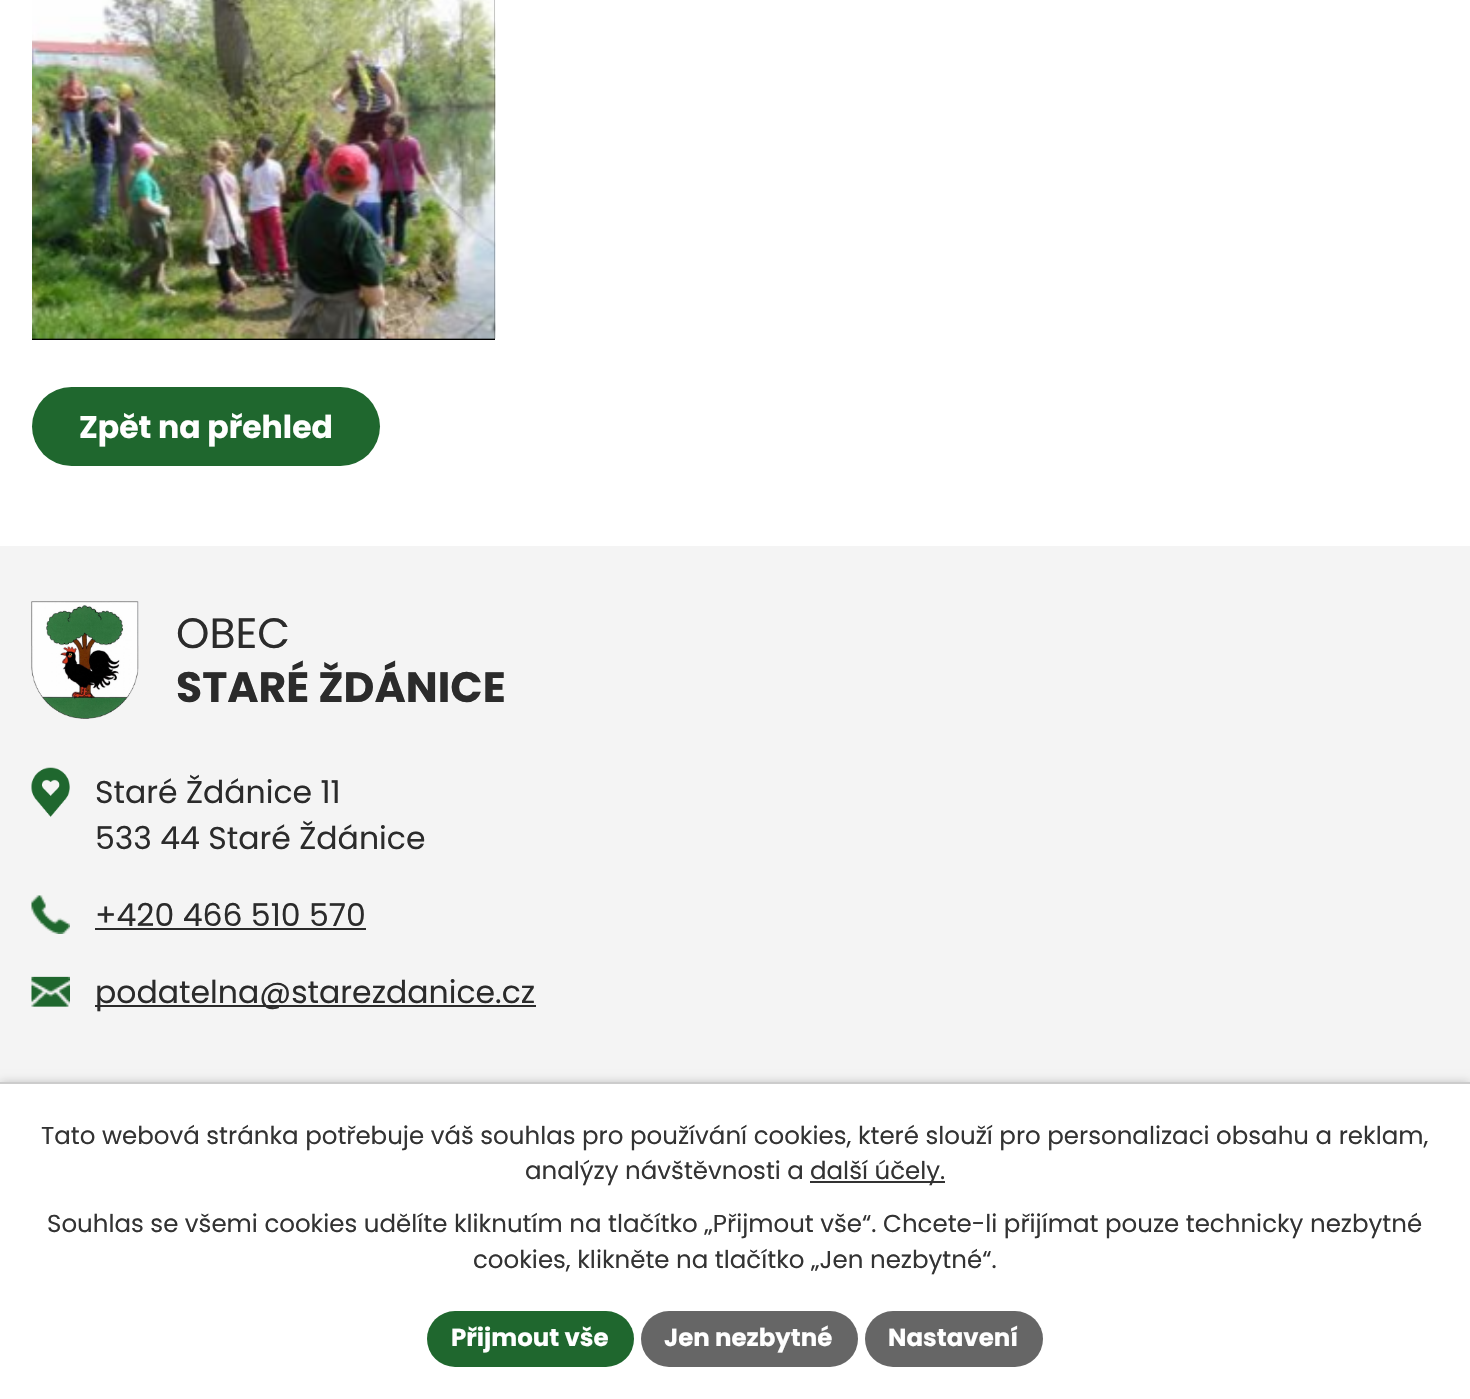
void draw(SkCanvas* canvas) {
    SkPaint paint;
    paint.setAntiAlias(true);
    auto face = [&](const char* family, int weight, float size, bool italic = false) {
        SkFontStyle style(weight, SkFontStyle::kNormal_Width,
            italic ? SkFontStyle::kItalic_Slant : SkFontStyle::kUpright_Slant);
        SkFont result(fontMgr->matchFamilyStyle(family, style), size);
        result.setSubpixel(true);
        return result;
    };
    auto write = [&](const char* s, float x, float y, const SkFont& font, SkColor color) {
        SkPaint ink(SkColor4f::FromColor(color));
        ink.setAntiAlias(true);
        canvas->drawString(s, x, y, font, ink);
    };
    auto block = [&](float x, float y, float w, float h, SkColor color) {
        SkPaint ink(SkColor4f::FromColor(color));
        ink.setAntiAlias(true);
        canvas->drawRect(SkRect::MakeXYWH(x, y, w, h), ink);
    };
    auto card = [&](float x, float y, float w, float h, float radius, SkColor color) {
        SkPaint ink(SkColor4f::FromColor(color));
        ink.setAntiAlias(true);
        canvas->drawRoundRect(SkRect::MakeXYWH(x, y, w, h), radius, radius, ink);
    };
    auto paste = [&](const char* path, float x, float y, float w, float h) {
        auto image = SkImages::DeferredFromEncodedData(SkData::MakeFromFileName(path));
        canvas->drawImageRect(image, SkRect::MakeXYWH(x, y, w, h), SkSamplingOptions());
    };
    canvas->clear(SK_ColorWHITE);
    block(32, 0, 463, 340, SK_ColorBLACK);
    paste("pic1.png", 32, 0, 464, 339);
    card(32, 387, 348, 79, 39.5f, SkColorSetRGB(31, 103, 46));
    auto kFont1 = face("Poppins", 700, 31.5f);
    write("Zpět na přehled", 79, 438, kFont1, SK_ColorWHITE);
    block(0, 546, 1470, 536, SkColorSetRGB(244, 244, 244));
    paste("pic2.png", 31, 601, 108, 118);
    auto kFont2 = face("Poppins", 400, 42.5f);
    write("OBEC", 176, 648, kFont2, SkColorSetRGB(43, 43, 43));
    auto kFont3 = face("Poppins", 700, 42.5f);
    write("STARÉ ŽDÁNICE", 176, 702, kFont3, SkColorSetRGB(43, 43, 43));
    paste("pic3.png", 31, 767, 39, 50);
    auto kFont4 = face("Poppins", 400, 31.5f);
    write("Staré Ždánice 11", 95, 803, kFont4, SkColorSetRGB(43, 43, 43));
    write("533 44 Staré Ždánice", 95, 849, kFont4, SkColorSetRGB(43, 43, 43));
    paste("pic4.png", 31, 895, 39, 39);
    write("+420 466 510 570", 95, 926, kFont4, SkColorSetRGB(43, 43, 43));
    block(95, 928, 271, 2, SkColorSetRGB(43, 43, 43));
    paste("pic5.png", 31, 976, 39, 31);
    block(95, 1005, 441, 2, SkColorSetRGB(43, 43, 43));
    write("podatelna@starezdanice.cz", 95, 1003, kFont4, SkColorSetRGB(43, 43, 43));
    paint.setColor(SkColorSetARGB(51, 0, 0, 0));
    paint.setMaskFilter(SkMaskFilter::MakeBlur(kNormal_SkBlurStyle, 4.5f));
    canvas->drawRect(SkRect::MakeXYWH(0, 1082, 1470, 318), paint);
    paint.setMaskFilter(nullptr);
    block(0, 1084, 1470, 315, SK_ColorWHITE);
    block(0, 1082, 1470, 2, SkColorSetRGB(204, 204, 204));
    auto kFont5 = face("Poppins", 400, 24.5f);
    write("Tato webová stránka potřebuje váš souhlas pro používání cookies, které slouží pro personalizaci obsahu a reklam,", 41, 1144, kFont5, SkColorSetRGB(51, 51, 51));
    write("analýzy návštěvnosti a", 525, 1179, kFont5, SkColorSetRGB(51, 51, 51));
    block(810, 1181, 135, 2, SkColorSetRGB(51, 51, 51));
    write("další účely.", 810, 1179, kFont5, SkColorSetRGB(51, 51, 51));
    write("Souhlas se všemi cookies udělíte kliknutím na tlačítko „Přijmout vše“. Chcete-li přijímat pouze technicky nezbytné", 47, 1232, kFont5, SkColorSetRGB(51, 51, 51));
    write("cookies, klikněte na tlačítko „Jen nezbytné“.", 473, 1268, kFont5, SkColorSetRGB(51, 51, 51));
    card(427, 1311, 207, 56, 28, SkColorSetRGB(31, 103, 46));
    auto kFont6 = face("Poppins", 700, 24.5f);
    write("Přijmout vše", 451, 1346, kFont6, SK_ColorWHITE);
    card(641, 1311, 217, 56, 28, SkColorSetRGB(102, 102, 102));
    write("Jen nezbytné", 664, 1346, kFont6, SK_ColorWHITE);
    card(865, 1311, 178, 56, 28, SkColorSetRGB(102, 102, 102));
    write("Nastavení", 888, 1346, kFont6, SK_ColorWHITE);
}
